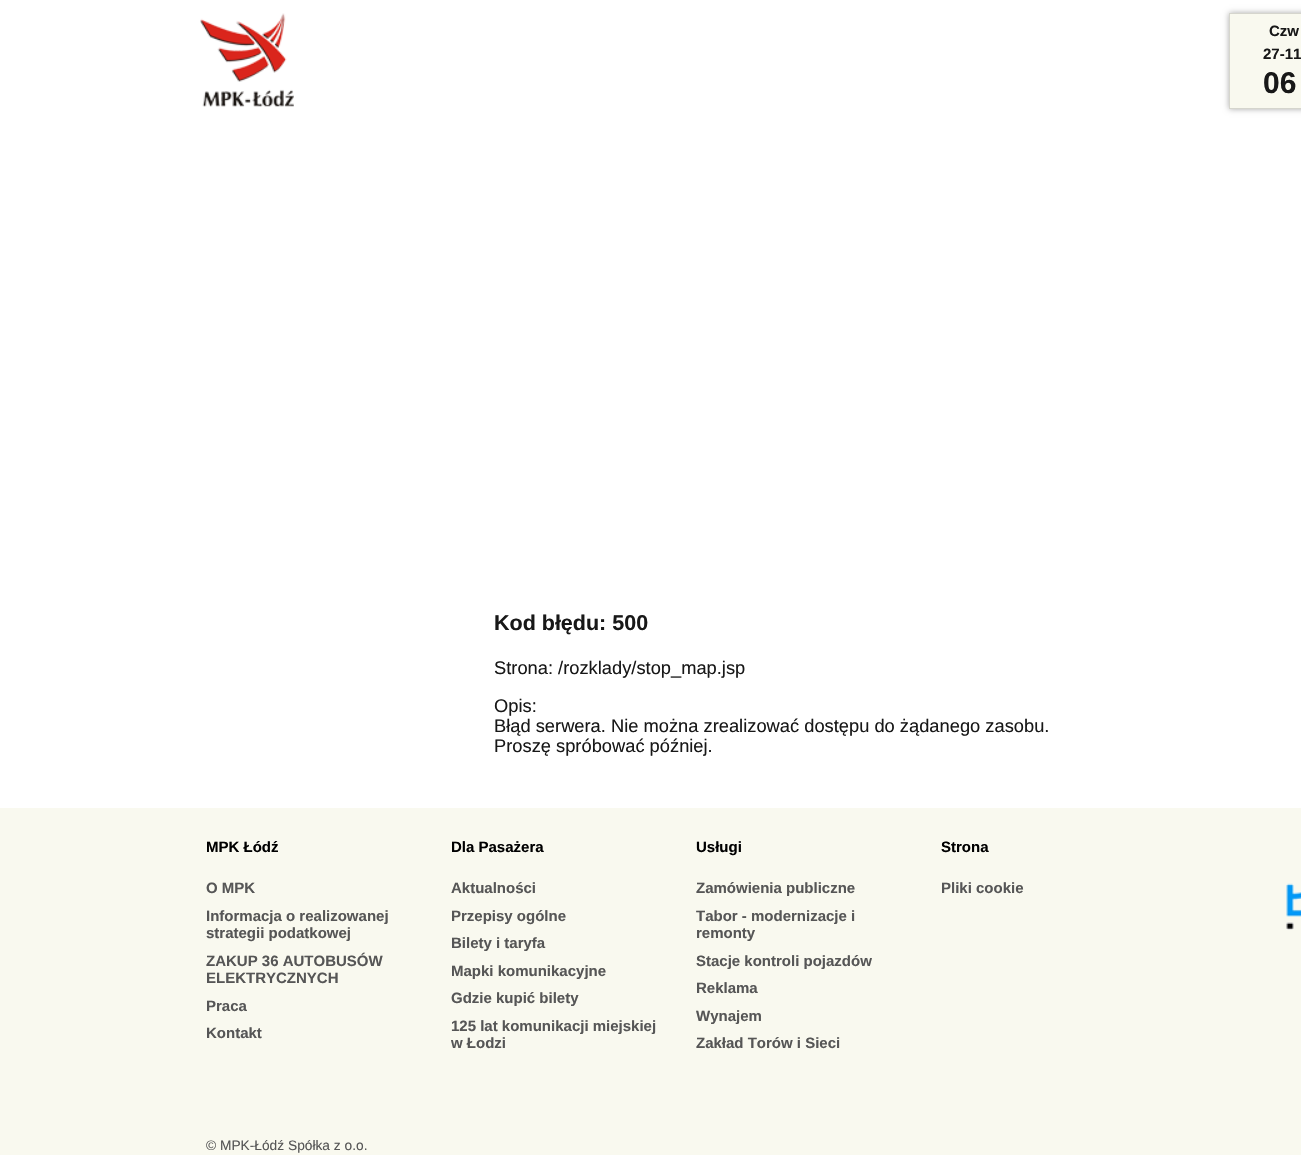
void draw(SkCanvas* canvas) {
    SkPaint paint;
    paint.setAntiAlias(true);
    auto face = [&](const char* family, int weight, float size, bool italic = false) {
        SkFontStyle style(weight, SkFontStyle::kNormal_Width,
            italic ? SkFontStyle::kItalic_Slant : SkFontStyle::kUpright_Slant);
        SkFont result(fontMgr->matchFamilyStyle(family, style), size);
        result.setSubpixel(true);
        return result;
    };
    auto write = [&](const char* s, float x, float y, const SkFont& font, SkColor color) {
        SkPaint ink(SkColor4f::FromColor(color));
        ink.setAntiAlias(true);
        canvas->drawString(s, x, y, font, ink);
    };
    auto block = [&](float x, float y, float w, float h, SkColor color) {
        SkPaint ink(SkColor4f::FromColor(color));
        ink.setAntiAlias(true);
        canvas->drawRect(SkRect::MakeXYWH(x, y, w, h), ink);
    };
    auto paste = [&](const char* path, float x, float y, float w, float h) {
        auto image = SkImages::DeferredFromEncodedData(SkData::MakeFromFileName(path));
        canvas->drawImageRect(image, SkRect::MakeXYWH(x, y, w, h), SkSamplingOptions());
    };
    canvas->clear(SK_ColorWHITE);
    paste("pic1.png", 200, 13, 94, 94);
    paint.setColor(SkColorSetRGB(170, 170, 170));
    paint.setMaskFilter(SkMaskFilter::MakeBlur(kNormal_SkBlurStyle, 3));
    canvas->drawRect(SkRect::MakeXYWH(1229, 13, 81, 96), paint);
    paint.setMaskFilter(nullptr);
    paint.setColor(SkColorSetRGB(249, 249, 239));
    canvas->drawRect(SkRect::MakeXYWH(1229.5f, 13.5f, 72, 95), paint);
    paint.setStyle(SkPaint::kStroke_Style);
    paint.setStrokeWidth(1);
    paint.setColor(SkColorSetRGB(213, 213, 205));
    canvas->drawRect(SkRect::MakeXYWH(1229.5f, 13.5f, 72, 95), paint);
    auto kFont1 = face("Liberation Sans", 700, 15);
    write("Czw", 1269, 36, kFont1, SkColorSetRGB(24, 24, 24));
    write("27-11", 1263, 59, kFont1, SkColorSetRGB(24, 24, 24));
    auto kFont2 = face("Liberation Sans", 700, 30);
    write("06", 1263, 93, kFont2, SkColorSetRGB(24, 24, 24));
    auto kFont3 = face("Liberation Sans", 700, 21.5f);
    write("Kod błędu: 500", 494, 630, kFont3, SkColorSetRGB(24, 24, 24));
    auto kFont4 = face("Liberation Sans", 400, 18.3f);
    write("Strona: /rozklady/stop_map.jsp", 494, 674, kFont4, SkColorSetRGB(24, 24, 24));
    write("Opis:", 494, 712, kFont4, SkColorSetRGB(24, 24, 24));
    write("Błąd serwera. Nie można zrealizować dostępu do żądanego zasobu.", 494, 732, kFont4, SkColorSetRGB(24, 24, 24));
    write("Proszę spróbować później.", 494, 752, kFont4, SkColorSetRGB(24, 24, 24));
    block(0, 808, 1301, 347, SkColorSetRGB(249, 249, 239));
    paste("pic2.png", 1286, 883, 15, 47);
    write("MPK Łódź", 206, 852, kFont1, SK_ColorBLACK);
    write("O MPK", 206, 893, kFont1, SkColorSetRGB(86, 86, 86));
    write("Informacja o realizowanej", 206, 921, kFont1, SkColorSetRGB(86, 86, 86));
    write("strategii podatkowej", 206, 938, kFont1, SkColorSetRGB(86, 86, 86));
    write("ZAKUP 36 AUTOBUSÓW", 206, 966, kFont1, SkColorSetRGB(86, 86, 86));
    write("ELEKTRYCZNYCH", 206, 983, kFont1, SkColorSetRGB(86, 86, 86));
    write("Praca", 206, 1011, kFont1, SkColorSetRGB(86, 86, 86));
    write("Kontakt", 206, 1038, kFont1, SkColorSetRGB(86, 86, 86));
    write("Dla Pasażera", 451, 852, kFont1, SK_ColorBLACK);
    write("Aktualności", 451, 893, kFont1, SkColorSetRGB(86, 86, 86));
    write("Przepisy ogólne", 451, 921, kFont1, SkColorSetRGB(86, 86, 86));
    write("Bilety i taryfa", 451, 948, kFont1, SkColorSetRGB(86, 86, 86));
    write("Mapki komunikacyjne", 451, 976, kFont1, SkColorSetRGB(86, 86, 86));
    write("Gdzie kupić bilety", 451, 1003, kFont1, SkColorSetRGB(86, 86, 86));
    write("125 lat komunikacji miejskiej", 451, 1031, kFont1, SkColorSetRGB(86, 86, 86));
    write("w Łodzi", 451, 1048, kFont1, SkColorSetRGB(86, 86, 86));
    write("Usługi", 696, 852, kFont1, SK_ColorBLACK);
    write("Zamówienia publiczne", 696, 893, kFont1, SkColorSetRGB(86, 86, 86));
    write("Tabor - modernizacje i", 696, 921, kFont1, SkColorSetRGB(86, 86, 86));
    write("remonty", 696, 938, kFont1, SkColorSetRGB(86, 86, 86));
    write("Stacje kontroli pojazdów", 696, 966, kFont1, SkColorSetRGB(86, 86, 86));
    write("Reklama", 696, 993, kFont1, SkColorSetRGB(86, 86, 86));
    write("Wynajem", 696, 1021, kFont1, SkColorSetRGB(86, 86, 86));
    write("Zakład Torów i Sieci", 696, 1048, kFont1, SkColorSetRGB(86, 86, 86));
    write("Strona", 941, 852, kFont1, SK_ColorBLACK);
    write("Pliki cookie", 941, 893, kFont1, SkColorSetRGB(86, 86, 86));
    auto kFont5 = face("Liberation Sans", 400, 13.75f);
    write("© MPK-Łódź Spółka z o.o.", 206, 1150, kFont5, SkColorSetRGB(86, 86, 86));
}
